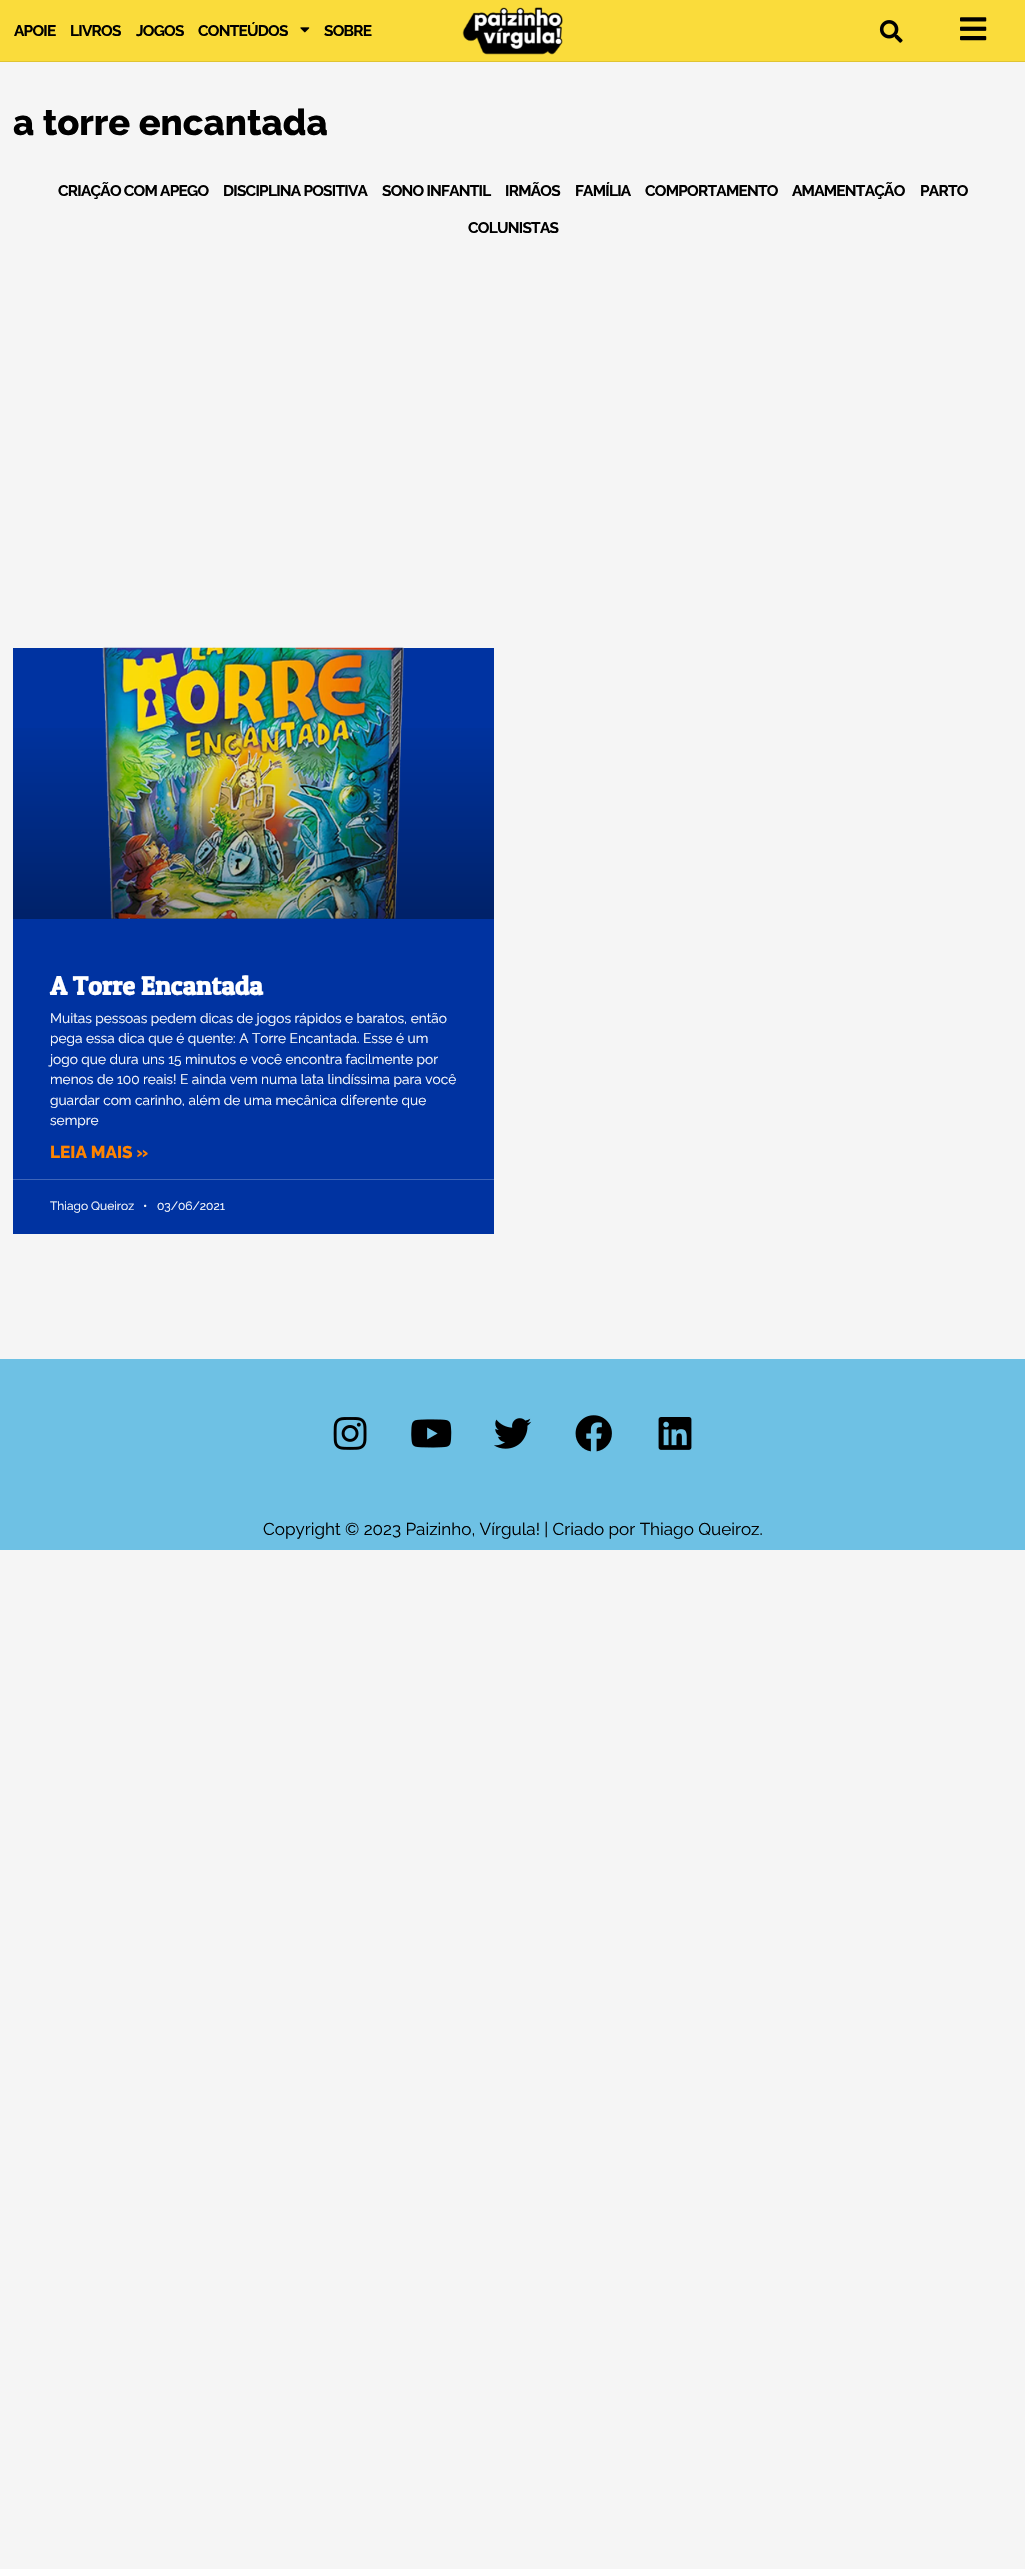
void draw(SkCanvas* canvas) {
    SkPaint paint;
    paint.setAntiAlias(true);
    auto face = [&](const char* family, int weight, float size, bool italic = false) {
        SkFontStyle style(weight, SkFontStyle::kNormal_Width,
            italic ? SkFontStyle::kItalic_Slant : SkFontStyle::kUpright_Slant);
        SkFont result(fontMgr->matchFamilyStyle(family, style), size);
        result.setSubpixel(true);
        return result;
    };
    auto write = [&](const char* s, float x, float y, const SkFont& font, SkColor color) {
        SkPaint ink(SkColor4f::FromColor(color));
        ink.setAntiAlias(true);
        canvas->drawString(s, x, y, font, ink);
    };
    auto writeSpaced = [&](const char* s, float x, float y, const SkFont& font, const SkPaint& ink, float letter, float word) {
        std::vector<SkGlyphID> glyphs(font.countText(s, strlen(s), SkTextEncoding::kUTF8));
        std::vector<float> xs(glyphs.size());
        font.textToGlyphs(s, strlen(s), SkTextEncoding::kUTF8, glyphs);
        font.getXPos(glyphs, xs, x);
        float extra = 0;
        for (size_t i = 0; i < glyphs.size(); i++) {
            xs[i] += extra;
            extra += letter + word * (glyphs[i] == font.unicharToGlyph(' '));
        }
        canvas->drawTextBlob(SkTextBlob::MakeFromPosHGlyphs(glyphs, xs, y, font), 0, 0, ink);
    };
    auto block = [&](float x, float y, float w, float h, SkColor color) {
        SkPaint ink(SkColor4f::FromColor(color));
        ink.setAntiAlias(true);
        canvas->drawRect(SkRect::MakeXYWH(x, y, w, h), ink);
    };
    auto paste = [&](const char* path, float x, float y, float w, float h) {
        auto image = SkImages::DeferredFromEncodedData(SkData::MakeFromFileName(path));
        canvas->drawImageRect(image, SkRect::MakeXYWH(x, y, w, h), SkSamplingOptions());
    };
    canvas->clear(SkColorSetRGB(245, 245, 245));
    block(0, 0, 1025, 61, SkColorSetRGB(250, 220, 59));
    block(0, 61, 1025, 1, SkColorSetRGB(224, 196, 50));
    auto kFont1 = face("Raleway", 700, 15.4f);
    paint.setColor(SK_ColorBLACK);
    writeSpaced("APOIE", 14, 36, kFont1, paint, -0.75f, 0);
    writeSpaced("LIVROS", 70, 36, kFont1, paint, -0.75f, 0);
    writeSpaced("JOGOS", 136, 36, kFont1, paint, -0.75f, 0);
    writeSpaced("CONTEÚDOS", 198, 36, kFont1, paint, -0.75f, 0);
    paste("pic1.png", 300, 27, 10, 6);
    writeSpaced("SOBRE", 324, 36, kFont1, paint, -0.75f, 0);
    paste("pic2.png", 462, 7, 101, 48);
    paste("pic3.png", 879, 20, 24, 23);
    paste("pic4.png", 960, 17, 27, 24);
    auto kFont2 = face("Raleway", 800, 36.25f);
    write("a torre encantada", 13, 135, kFont2, SK_ColorBLACK);
    writeSpaced("CRIAÇÃO COM APEGO", 58, 196, kFont1, paint, -0.75f, 0);
    writeSpaced("DISCIPLINA POSITIVA", 223, 196, kFont1, paint, -0.75f, 0);
    writeSpaced("SONO INFANTIL", 382, 196, kFont1, paint, -0.75f, 0);
    writeSpaced("IRMÃOS", 505, 196, kFont1, paint, -0.75f, 0);
    writeSpaced("FAMÍLIA", 575, 196, kFont1, paint, -0.75f, 0);
    writeSpaced("COMPORTAMENTO", 645, 196, kFont1, paint, -0.75f, 0);
    writeSpaced("AMAMENTAÇÃO", 792, 196, kFont1, paint, -0.75f, 0);
    writeSpaced("PARTO", 920, 196, kFont1, paint, -0.75f, 0);
    writeSpaced("COLUNISTAS", 468, 233, kFont1, paint, -0.75f, 0);
    block(13, 648, 481, 586, SkColorSetRGB(0, 51, 161));
    paste("pic5.png", 102, 647, 302, 272);
    {
        const SkColor colors[] = {SkColorSetARGB(89, 0, 0, 0), SkColorSetARGB(0, 0, 0, 0)};
        const float stops[] = {0, 0.75f};
        const SkPoint ends[] = {{253, 919}, {253, 648}};
        paint.setShader(SkGradientShader::MakeLinear(ends, colors, stops, 2, SkTileMode::kClamp));
        paint.setAlpha(255);
    }
    canvas->drawRect(SkRect::MakeXYWH(13, 728, 481, 191), paint);
    auto kFont3 = face("Patua One", 700, 26.25f);
    write("A Torre Encantada", 50, 995, kFont3, SK_ColorWHITE);
    auto kFont4 = face("Raleway", 400, 13.7f);
    write("Muitas pessoas pedem dicas de jogos rápidos e baratos, então", 50, 1023, kFont4, SK_ColorWHITE);
    write("pega essa dica que é quente: A Torre Encantada. Esse é um", 50, 1043, kFont4, SK_ColorWHITE);
    write("jogo que dura uns 15 minutos e você encontra facilmente por", 50, 1064, kFont4, SK_ColorWHITE);
    write("menos de 100 reais! E ainda vem numa lata lindíssima para você", 50, 1084, kFont4, SK_ColorWHITE);
    write("guardar com carinho, além de uma mecânica diferente que", 50, 1105, kFont4, SK_ColorWHITE);
    write("sempre", 50, 1125, kFont4, SK_ColorWHITE);
    auto kFont5 = face("Raleway", 800, 17.1f);
    write("LEIA MAIS »", 50, 1158, kFont5, SkColorSetRGB(255, 132, 0));
    block(13, 1179, 481, 1, SkColorSetRGB(61, 100, 184));
    auto kFont6 = face("Raleway", 400, 12);
    write("Thiago Queiroz", 50, 1210, kFont6, SK_ColorWHITE);
    write("•", 143, 1210, kFont6, SK_ColorWHITE);
    write("03/06/2021", 157, 1210, kFont6, SK_ColorWHITE);
    block(0, 1359, 1025, 191, SkColorSetRGB(110, 193, 228));
    paste("pic6.png", 333, 1417, 34, 33);
    paste("pic7.png", 411, 1419, 41, 29);
    paste("pic8.png", 494, 1418, 38, 31);
    paste("pic9.png", 575, 1415, 37, 37);
    paste("pic10.png", 658, 1417, 34, 33);
    auto kFont7 = face("Raleway", 400, 17.1f);
    write("Copyright © 2023 Paizinho, Vírgula! | Criado por Thiago Queiroz.", 263, 1535, kFont7, SK_ColorBLACK);
}
